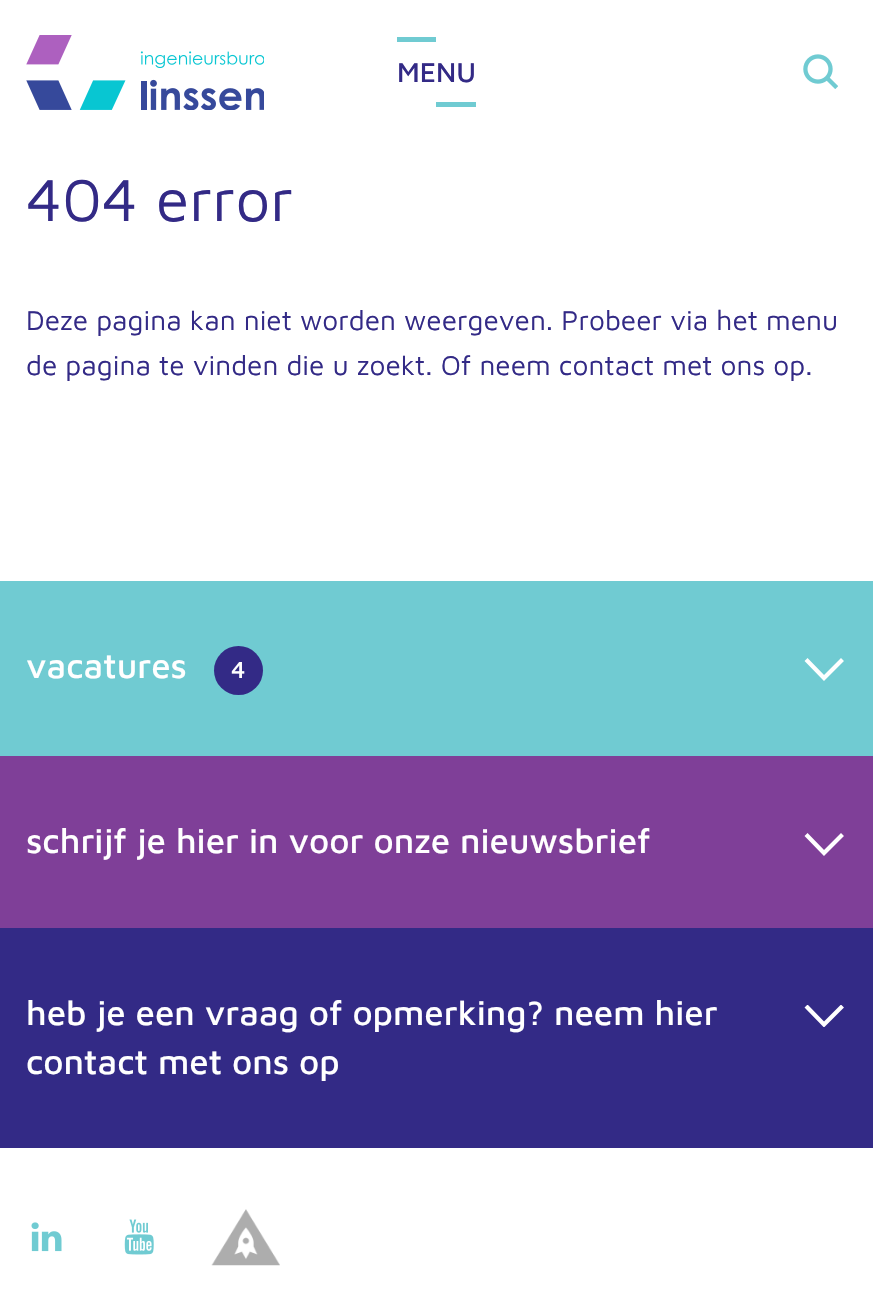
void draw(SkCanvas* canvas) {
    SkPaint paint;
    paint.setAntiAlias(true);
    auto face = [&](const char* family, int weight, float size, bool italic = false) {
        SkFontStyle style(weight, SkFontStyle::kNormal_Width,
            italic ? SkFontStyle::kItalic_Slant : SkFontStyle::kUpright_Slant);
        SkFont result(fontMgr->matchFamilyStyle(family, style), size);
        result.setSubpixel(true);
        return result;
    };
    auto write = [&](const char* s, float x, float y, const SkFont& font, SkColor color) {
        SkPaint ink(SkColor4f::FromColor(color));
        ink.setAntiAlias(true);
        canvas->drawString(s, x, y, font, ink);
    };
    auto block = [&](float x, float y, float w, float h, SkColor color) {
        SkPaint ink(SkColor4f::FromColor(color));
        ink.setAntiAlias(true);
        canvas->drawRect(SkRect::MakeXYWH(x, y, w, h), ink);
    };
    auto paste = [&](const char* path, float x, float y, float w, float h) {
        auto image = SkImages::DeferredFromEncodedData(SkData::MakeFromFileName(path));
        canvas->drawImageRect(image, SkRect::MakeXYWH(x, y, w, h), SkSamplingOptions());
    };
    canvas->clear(SK_ColorWHITE);
    paste("pic1.png", 26, 35, 238, 75);
    block(397, 37, 39, 5, SkColorSetRGB(112, 203, 210));
    auto kFont1 = face("Maven Pro", 500, 28);
    write("MENU", 397, 82, kFont1, SkColorSetRGB(51, 42, 134));
    block(436, 102, 40, 5, SkColorSetRGB(112, 203, 210));
    paste("pic2.png", 803, 54, 35, 35);
    auto kFont2 = face("Maven Pro", 400, 61.25f);
    write("404 error", 26, 221, kFont2, SkColorSetRGB(51, 42, 134));
    auto kFont3 = face("Maven Pro", 400, 28);
    write("Deze pagina kan niet worden weergeven. Probeer via het menu", 26, 330, kFont3, SkColorSetRGB(51, 42, 134));
    write("de pagina te vinden die u zoekt. Of neem contact met ons op.", 26, 375, kFont3, SkColorSetRGB(51, 42, 134));
    block(0, 581, 873, 175, SkColorSetRGB(112, 203, 210));
    auto kFont4 = face("Maven Pro", 500, 35);
    write("vacatures", 26, 678, kFont4, SK_ColorWHITE);
    paint.setColor(SkColorSetRGB(51, 42, 134));
    canvas->drawCircle(238.5f, 670.5f, 24.5f, paint);
    auto kFont5 = face("Maven Pro", 500, 24);
    write("4", 231, 678, kFont5, SK_ColorWHITE);
    paint.setStyle(SkPaint::kStroke_Style);
    paint.setStrokeWidth(4.2f);
    paint.setStrokeCap(SkPaint::kSquare_Cap);
    paint.setColor(SK_ColorWHITE);
    canvas->drawPath(SkPathBuilder().moveTo(824, 678).lineTo(841, 661).moveTo(807.5f, 661).lineTo(824, 678).detach(), paint);
    block(0, 756, 873, 172, SkColorSetRGB(127, 63, 152));
    write("schrijf je hier in voor onze nieuwsbrief", 26, 853, kFont4, SK_ColorWHITE);
    canvas->drawPath(SkPathBuilder().moveTo(824, 853).lineTo(841, 836).moveTo(807.5f, 836).lineTo(824, 853).detach(), paint);
    block(0, 928, 873, 220, SkColorSetRGB(51, 42, 134));
    write("heb je een vraag of opmerking? neem hier", 26, 1025, kFont4, SK_ColorWHITE);
    canvas->save();
    canvas->clipRect(SkRect::MakeXYWH(802, 1005, 45, 22));
    canvas->drawPath(SkPathBuilder().moveTo(824, 1024.5f).lineTo(841, 1007.5f).moveTo(807.5f, 1007.5f).lineTo(824, 1024.5f).detach(), paint);
    canvas->restore();
    write("contact met ons op", 26, 1074, kFont4, SK_ColorWHITE);
    paste("pic3.png", 31, 1222, 31, 30);
    paste("pic4.png", 124, 1219, 30, 36);
    paste("pic5.png", 211, 1209, 69, 57);
}
